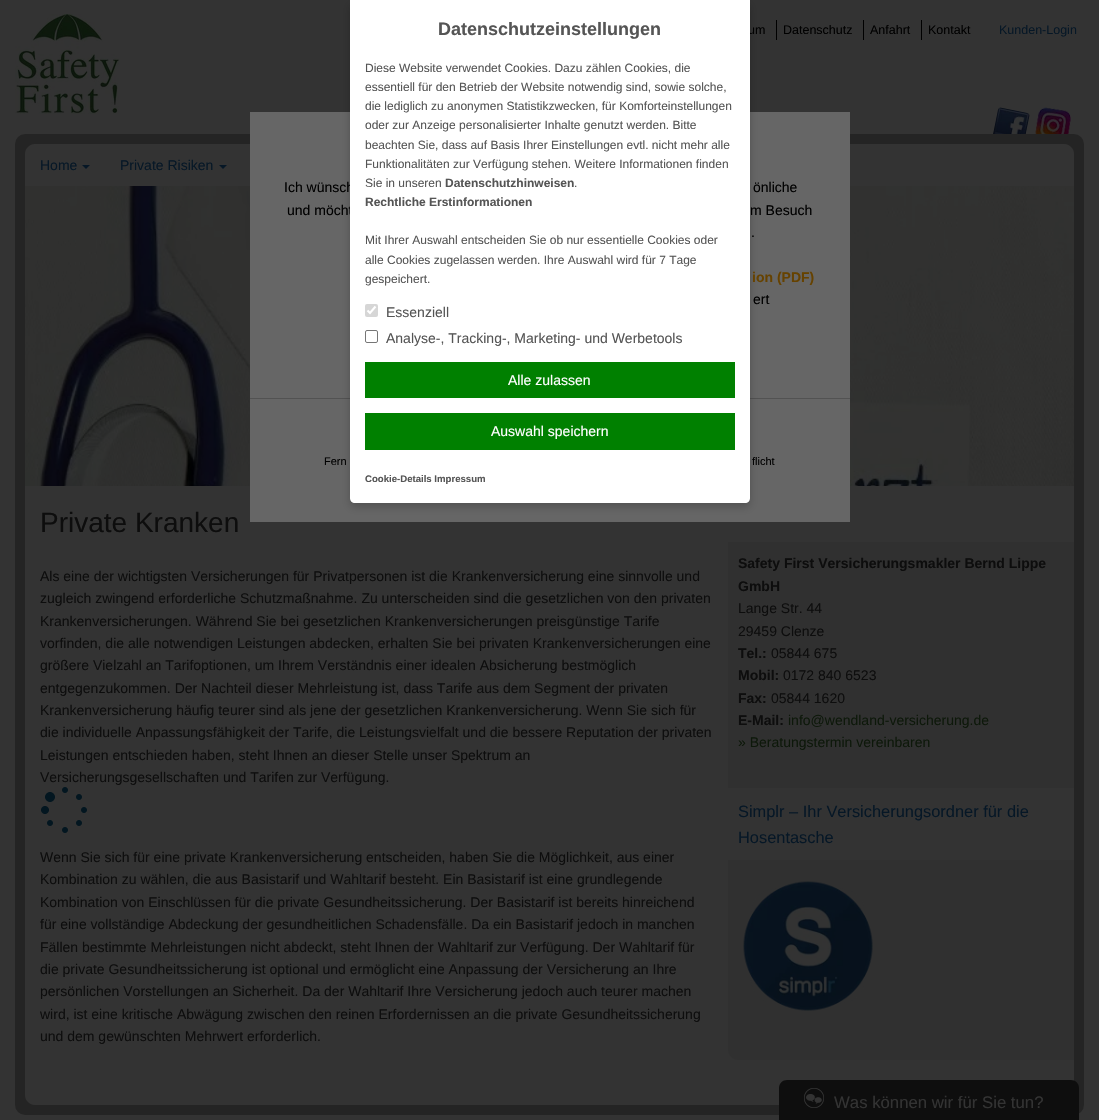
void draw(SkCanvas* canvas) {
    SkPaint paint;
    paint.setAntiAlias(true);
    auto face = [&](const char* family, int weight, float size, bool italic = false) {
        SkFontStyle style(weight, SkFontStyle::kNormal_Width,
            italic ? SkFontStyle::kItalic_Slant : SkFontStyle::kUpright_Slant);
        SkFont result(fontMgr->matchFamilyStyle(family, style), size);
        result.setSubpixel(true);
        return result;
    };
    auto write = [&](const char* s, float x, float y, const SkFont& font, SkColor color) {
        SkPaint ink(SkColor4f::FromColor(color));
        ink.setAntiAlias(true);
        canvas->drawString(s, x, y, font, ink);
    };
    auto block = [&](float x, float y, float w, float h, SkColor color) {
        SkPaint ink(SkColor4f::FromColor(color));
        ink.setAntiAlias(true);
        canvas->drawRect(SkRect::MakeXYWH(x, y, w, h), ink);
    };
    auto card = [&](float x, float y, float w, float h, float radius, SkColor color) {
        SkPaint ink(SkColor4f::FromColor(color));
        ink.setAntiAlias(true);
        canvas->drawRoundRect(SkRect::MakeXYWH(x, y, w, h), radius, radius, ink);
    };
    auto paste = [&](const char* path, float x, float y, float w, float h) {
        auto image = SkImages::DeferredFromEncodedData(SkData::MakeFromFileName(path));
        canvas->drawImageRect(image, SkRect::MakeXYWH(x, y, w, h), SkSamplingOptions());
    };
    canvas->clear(SkColorSetRGB(51, 51, 51));
    paint.setColor(SkColorSetRGB(36, 36, 36));
    canvas->drawRoundRect(SkRect::MakeXYWH(20, 139, 1059, 971), 5, 5, paint);
    paint.setStyle(SkPaint::kStroke_Style);
    paint.setStrokeWidth(10);
    canvas->drawRoundRect(SkRect::MakeXYWH(20, 139, 1059, 971), 5, 5, paint);
    paint.setStyle(SkPaint::kFill_Style);
    paint.setColor(SkColorSetRGB(51, 51, 51));
    canvas->drawPath(SkPathBuilder().moveTo(25, 186).lineTo(1074, 186).lineTo(1074, 1095).cubicTo(1074, 1100.5f, 1069.5f, 1105, 1064, 1105).lineTo(35, 1105).cubicTo(29.5f, 1105, 25, 1100.5f, 25, 1095).close().detach(), paint);
    canvas->drawPath(SkPathBuilder().moveTo(35, 144).lineTo(1064, 144).cubicTo(1069.5f, 144, 1074, 148.5f, 1074, 154).lineTo(1074, 187).lineTo(25, 187).lineTo(25, 154).cubicTo(25, 148.5f, 29.5f, 144, 35, 144).close().detach(), paint);
    paste("pic4.png", 25, 186, 1049, 300);
    paint.setColor(SkColorSetRGB(48, 48, 48));
    canvas->drawPath(SkPathBuilder().moveTo(738, 496).lineTo(1074, 496).lineTo(1074, 1060).lineTo(738, 1060).cubicTo(732.5f, 1060, 728, 1055.5f, 728, 1050).lineTo(728, 506).cubicTo(728, 500.5f, 732.5f, 496, 738, 496).close().detach(), paint);
    block(728, 496, 346, 46, SkColorSetRGB(51, 51, 51));
    block(250, 112, 600, 410, SkColorSetRGB(102, 102, 102));
    block(250, 398, 600, 1, SkColorSetRGB(82, 82, 82));
    paint.setColor(SkColorSetARGB(51, 0, 0, 0));
    paint.setMaskFilter(SkMaskFilter::MakeBlur(kNormal_SkBlurStyle, 4));
    canvas->drawRoundRect(SkRect::MakeXYWH(350, 4, 400, 503), 5, 5, paint);
    paint.setMaskFilter(nullptr);
    auto kFont1 = face("Liberation Sans", 400, 12.5f);
    write("um", 748, 34, kFont1, SK_ColorBLACK);
    auto kFont2 = face("Liberation Sans", 400, 14);
    write("Ich wünsch", 284, 192, kFont2, SK_ColorBLACK);
    write("und möcht", 287, 215, kFont2, SK_ColorBLACK);
    paint.setColor(SK_ColorWHITE);
    canvas->drawPath(SkPathBuilder().moveTo(350, 0).lineTo(750, 0).lineTo(750, 498).cubicTo(750, 501, 748, 503, 745, 503).lineTo(355, 503).cubicTo(352, 503, 350, 501, 350, 498).close().detach(), paint);
    auto kFont3 = face("Liberation Sans", 700, 18);
    write("Datenschutzeinstellungen", 438, 35, kFont3, SkColorSetRGB(85, 85, 85));
    auto kFont4 = face("Liberation Sans", 400, 12);
    write("Diese Website verwendet Cookies. Dazu zählen Cookies, die", 365, 72, kFont4, SkColorSetRGB(85, 85, 85));
    write("essentiell für den Betrieb der Website notwendig sind, sowie solche,", 365, 91, kFont4, SkColorSetRGB(85, 85, 85));
    write("die lediglich zu anonymen Statistikzwecken, für Komforteinstellungen", 365, 110, kFont4, SkColorSetRGB(85, 85, 85));
    write("oder zur Anzeige personalisierter Inhalte genutzt werden. Bitte", 365, 129, kFont4, SkColorSetRGB(85, 85, 85));
    write("beachten Sie, dass auf Basis Ihrer Einstellungen evtl. nicht mehr alle", 365, 149, kFont4, SkColorSetRGB(85, 85, 85));
    write("Funktionalitäten zur Verfügung stehen. Weitere Informationen finden", 365, 168, kFont4, SkColorSetRGB(85, 85, 85));
    write("Sie in unseren", 365, 187, kFont4, SkColorSetRGB(85, 85, 85));
    auto kFont5 = face("Liberation Sans", 700, 12);
    write("Datenschutzhinweisen", 445, 187, kFont5, SkColorSetRGB(85, 85, 85));
    write(".", 574, 187, kFont4, SkColorSetRGB(85, 85, 85));
    write("Rechtliche Erstinformationen", 365, 206, kFont5, SkColorSetRGB(85, 85, 85));
    write("Mit Ihrer Auswahl entscheiden Sie ob nur essentielle Cookies oder", 365, 244, kFont4, SkColorSetRGB(85, 85, 85));
    write("alle Cookies zugelassen werden. Ihre Auswahl wird für 7 Tage", 365, 264, kFont4, SkColorSetRGB(85, 85, 85));
    write("gespeichert.", 365, 283, kFont4, SkColorSetRGB(85, 85, 85));
    card(365, 304, 13, 13, 2, SkColorSetRGB(214, 214, 214));
    paint.setStyle(SkPaint::kStroke_Style);
    paint.setStrokeWidth(2.1f);
    canvas->drawPath(SkPathBuilder().moveTo(367.5f, 310.5f).lineTo(370, 313).lineTo(375.5f, 306.5f).detach(), paint);
    write("Essenziell", 386, 317, kFont2, SkColorSetRGB(85, 85, 85));
    paint.setStrokeWidth(1);
    paint.setColor(SkColorSetRGB(118, 118, 118));
    canvas->drawRoundRect(SkRect::MakeXYWH(365.5f, 330.5f, 12, 12), 1.5f, 1.5f, paint);
    write("Analyse-, Tracking-, Marketing- und Werbetools", 386, 343, kFont2, SkColorSetRGB(85, 85, 85));
    block(365, 362, 370, 36, SkColorSetRGB(0, 128, 0));
    write("Alle zulassen", 508, 385, kFont2, SK_ColorWHITE);
    block(365, 413, 370, 37, SkColorSetRGB(0, 128, 0));
    write("Auswahl speichern", 491, 436, kFont2, SK_ColorWHITE);
    auto kFont6 = face("Liberation Sans", 700, 9.6f);
    write("Cookie-Details Impressum", 365, 482, kFont6, SkColorSetRGB(85, 85, 85));
    paste("pic1.png", 15, 14, 105, 100);
    block(776, 20, 1, 20, SK_ColorBLACK);
    write("Datenschutz", 783, 34, kFont1, SK_ColorBLACK);
    block(863, 20, 1, 20, SK_ColorBLACK);
    write("Anfahrt", 870, 34, kFont1, SK_ColorBLACK);
    block(921, 20, 1, 20, SK_ColorBLACK);
    write("Kontakt", 928, 34, kFont1, SK_ColorBLACK);
    write("Kunden-Login", 999, 34, kFont1, SkColorSetRGB(6, 23, 38));
    paste("pic2.png", 993, 107, 37, 27);
    paste("pic3.png", 1035, 107, 37, 27);
    write("Home", 40, 170, kFont2, SkColorSetRGB(6, 23, 38));
    paint.setStyle(SkPaint::kFill_Style);
    paint.setColor(SkColorSetRGB(6, 23, 38));
    canvas->drawPath(SkPathBuilder().moveTo(82, 165).lineTo(90, 165).lineTo(86, 169).close().detach(), paint);
    write("Private Risiken", 120, 170, kFont2, SkColorSetRGB(6, 23, 38));
    canvas->drawPath(SkPathBuilder().moveTo(219, 165).lineTo(227, 165).lineTo(223, 169).close().detach(), paint);
    auto kFont7 = face("Liberation Sans", 400, 28);
    write("Private Kranken", 40, 532, kFont7, SkColorSetRGB(13, 13, 13));
    write("Als eine der wichtigsten Versicherungen für Privatpersonen ist die Krankenversicherung eine sinnvolle und", 40, 581, kFont2, SkColorSetRGB(13, 13, 13));
    write("zugleich zwingend erforderliche Schutzmaßnahme. Zu unterscheiden sind die gesetzlichen von den privaten", 40, 603, kFont2, SkColorSetRGB(13, 13, 13));
    write("Krankenversicherungen. Während Sie bei gesetzlichen Krankenversicherungen preisgünstige Tarife", 40, 626, kFont2, SkColorSetRGB(13, 13, 13));
    write("vorfinden, die alle notwendigen Leistungen abdecken, erhalten Sie bei privaten Krankenversicherungen eine", 40, 648, kFont2, SkColorSetRGB(13, 13, 13));
    write("größere Vielzahl an Tarifoptionen, um Ihrem Verständnis einer idealen Absicherung bestmöglich", 40, 670, kFont2, SkColorSetRGB(13, 13, 13));
    write("entgegenzukommen. Der Nachteil dieser Mehrleistung ist, dass Tarife aus dem Segment der privaten", 40, 693, kFont2, SkColorSetRGB(13, 13, 13));
    write("Krankenversicherung häufig teurer sind als jene der gesetzlichen Krankenversicherung. Wenn Sie sich für", 40, 715, kFont2, SkColorSetRGB(13, 13, 13));
    write("die individuelle Anpassungsfähigkeit der Tarife, die Leistungsvielfalt und die bessere Reputation der privaten", 40, 737, kFont2, SkColorSetRGB(13, 13, 13));
    write("Leistungen entschieden haben, steht Ihnen an dieser Stelle unser Spektrum an", 40, 760, kFont2, SkColorSetRGB(13, 13, 13));
    write("Versicherungsgesellschaften und Tarifen zur Verfügung.", 40, 782, kFont2, SkColorSetRGB(13, 13, 13));
    paste("pic5.png", 41, 787, 46, 46);
    write("Wenn Sie sich für eine private Krankenversicherung entscheiden, haben Sie die Möglichkeit, aus einer", 40, 862, kFont2, SkColorSetRGB(13, 13, 13));
    write("Kombination zu wählen, die aus Basistarif und Wahltarif besteht. Ein Basistarif ist eine grundlegende", 40, 884, kFont2, SkColorSetRGB(13, 13, 13));
    write("Kombination von Einschlüssen für die private Gesundheitssicherung. Der Basistarif ist bereits hinreichend", 40, 907, kFont2, SkColorSetRGB(13, 13, 13));
    write("für eine vollständige Abdeckung der gesundheitlichen Schadensfälle. Da ein Basistarif jedoch in manchen", 40, 929, kFont2, SkColorSetRGB(13, 13, 13));
    write("Fällen bestimmte Mehrleistungen nicht abdeckt, steht Ihnen der Wahltarif zur Verfügung. Der Wahltarif für", 40, 952, kFont2, SkColorSetRGB(13, 13, 13));
    write("die private Gesundheitssicherung ist optional und ermöglicht eine Anpassung der Versicherung an Ihre", 40, 974, kFont2, SkColorSetRGB(13, 13, 13));
    write("persönlichen Vorstellungen an Sicherheit. Da der Wahltarif Ihre Versicherung jedoch auch teurer machen", 40, 996, kFont2, SkColorSetRGB(13, 13, 13));
    write("wird, ist eine kritische Abwägung zwischen den reinen Erfordernissen an die private Gesundheitssicherung", 40, 1019, kFont2, SkColorSetRGB(13, 13, 13));
    write("und dem gewünschten Mehrwert erforderlich.", 40, 1041, kFont2, SkColorSetRGB(13, 13, 13));
    auto kFont8 = face("Liberation Sans", 700, 14);
    write("Safety First Versicherungsmakler Bernd Lippe", 738, 568, kFont8, SkColorSetRGB(13, 13, 13));
    write("GmbH", 738, 591, kFont8, SkColorSetRGB(13, 13, 13));
    write("Lange Str. 44", 738, 613, kFont2, SkColorSetRGB(13, 13, 13));
    write("29459 Clenze", 738, 636, kFont2, SkColorSetRGB(13, 13, 13));
    write("Tel.:", 738, 658, kFont8, SkColorSetRGB(13, 13, 13));
    write("05844 675", 771, 658, kFont2, SkColorSetRGB(13, 13, 13));
    write("Mobil:", 738, 680, kFont8, SkColorSetRGB(13, 13, 13));
    write("0172 840 6523", 783, 680, kFont2, SkColorSetRGB(13, 13, 13));
    write("Fax:", 738, 703, kFont8, SkColorSetRGB(13, 13, 13));
    write("05844 1620", 771, 703, kFont2, SkColorSetRGB(13, 13, 13));
    write("E-Mail:", 738, 725, kFont8, SkColorSetRGB(13, 13, 13));
    write("info@wendland-versicherung.de", 788, 725, kFont2, SkColorSetRGB(13, 24, 10));
    write("» Beratungstermin vereinbaren", 738, 747, kFont2, SkColorSetRGB(13, 24, 10));
    block(728, 788, 346, 72, SkColorSetRGB(51, 51, 51));
    auto kFont9 = face("Liberation Sans", 400, 16.4f);
    write("Simplr – Ihr Versicherungsordner für die", 738, 817, kFont9, SkColorSetRGB(6, 23, 38));
    write("Hosentasche", 738, 843, kFont9, SkColorSetRGB(6, 23, 38));
    paste("pic6.png", 743, 881, 130, 130);
    write("önliche", 753, 192, kFont2, SK_ColorBLACK);
    write("m Besuch", 750, 215, kFont2, SK_ColorBLACK);
    write(".", 751, 237, kFont2, SK_ColorBLACK);
    write("ion (PDF)", 752, 282, kFont8, SkColorSetRGB(102, 66, 0));
    write("ert", 753, 304, kFont2, SK_ColorBLACK);
    auto kFont10 = face("Liberation Sans", 400, 11);
    write("Fern", 324, 465, kFont10, SK_ColorBLACK);
    write("flicht", 752, 465, kFont10, SK_ColorBLACK);
    paint.setColor(SkColorSetRGB(14, 14, 14));
    canvas->drawPath(SkPathBuilder().moveTo(787, 1080).lineTo(1071, 1080).cubicTo(1075.5f, 1080, 1079, 1083.5f, 1079, 1088).lineTo(1079, 1120).lineTo(779, 1120).lineTo(779, 1088).cubicTo(779, 1083.5f, 782.5f, 1080, 787, 1080).close().detach(), paint);
    paste("pic7.png", 804, 1088, 20, 20);
    auto kFont11 = face("Liberation Sans", 400, 16.75f);
    write("Was können wir für Sie tun?", 834, 1108, kFont11, SkColorSetRGB(51, 51, 51));
}
